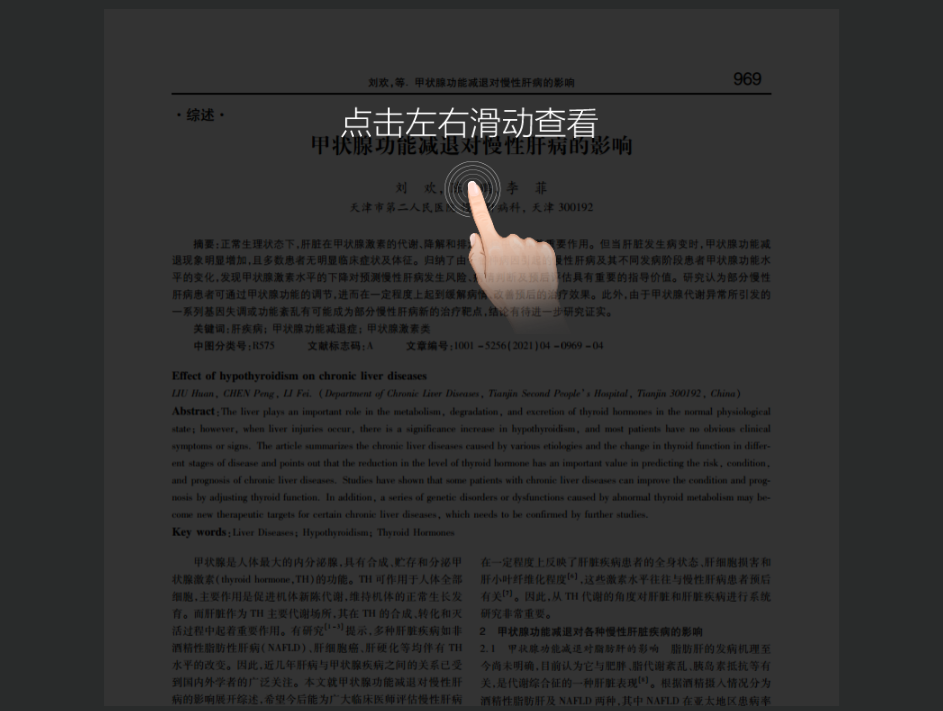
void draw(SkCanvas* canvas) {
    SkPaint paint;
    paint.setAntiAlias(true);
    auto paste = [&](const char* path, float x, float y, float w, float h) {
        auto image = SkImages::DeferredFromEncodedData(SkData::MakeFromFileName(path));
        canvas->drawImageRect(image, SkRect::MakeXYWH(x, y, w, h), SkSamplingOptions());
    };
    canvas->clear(SkColorSetRGB(41, 43, 43));
    paste("pic1.png", 104, 9, 736, 697);
    paste("pic2.png", 340, 106, 258, 228);
}
